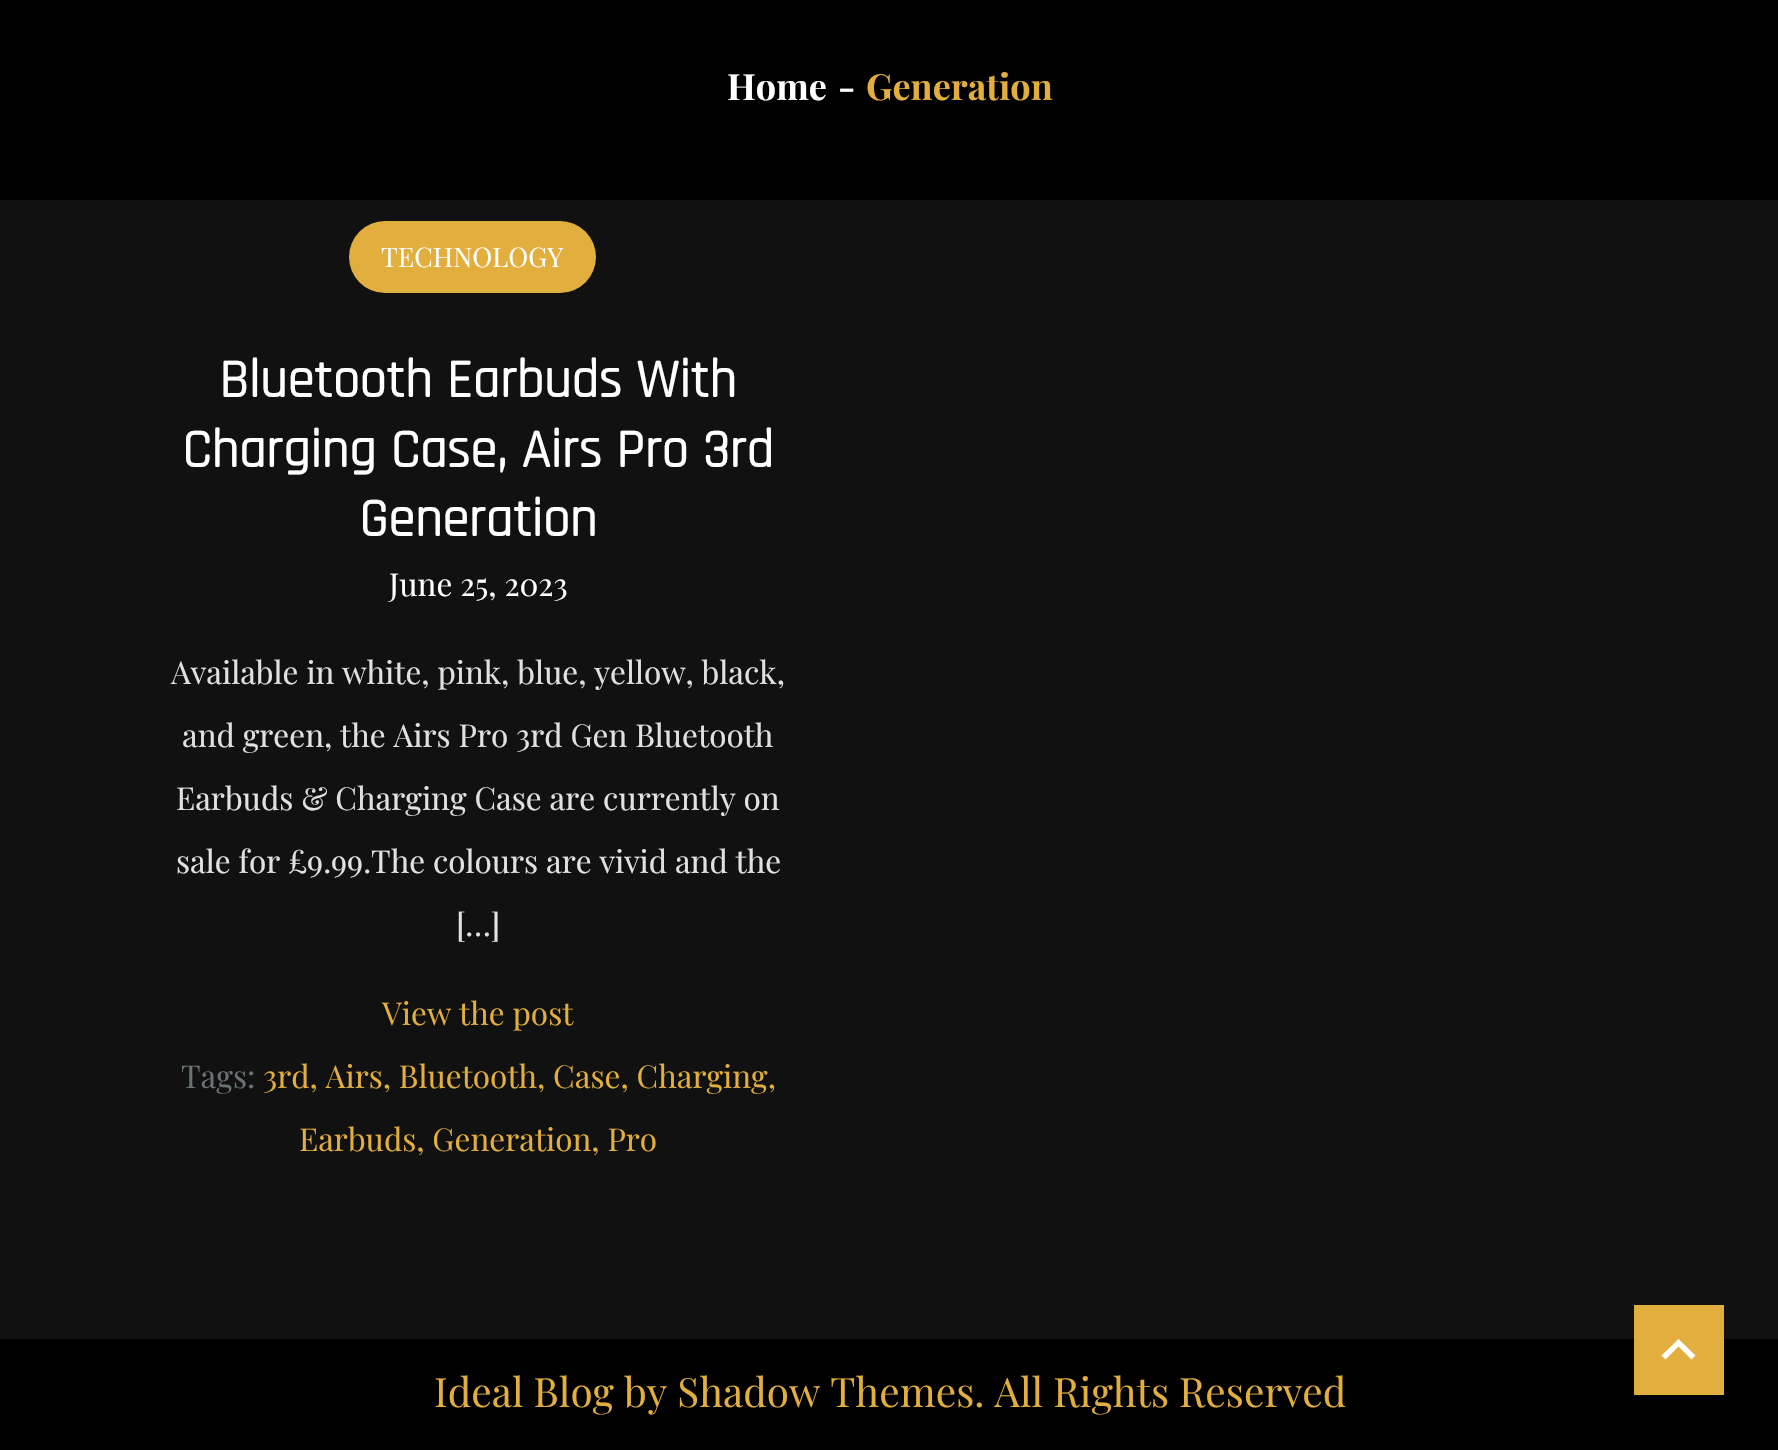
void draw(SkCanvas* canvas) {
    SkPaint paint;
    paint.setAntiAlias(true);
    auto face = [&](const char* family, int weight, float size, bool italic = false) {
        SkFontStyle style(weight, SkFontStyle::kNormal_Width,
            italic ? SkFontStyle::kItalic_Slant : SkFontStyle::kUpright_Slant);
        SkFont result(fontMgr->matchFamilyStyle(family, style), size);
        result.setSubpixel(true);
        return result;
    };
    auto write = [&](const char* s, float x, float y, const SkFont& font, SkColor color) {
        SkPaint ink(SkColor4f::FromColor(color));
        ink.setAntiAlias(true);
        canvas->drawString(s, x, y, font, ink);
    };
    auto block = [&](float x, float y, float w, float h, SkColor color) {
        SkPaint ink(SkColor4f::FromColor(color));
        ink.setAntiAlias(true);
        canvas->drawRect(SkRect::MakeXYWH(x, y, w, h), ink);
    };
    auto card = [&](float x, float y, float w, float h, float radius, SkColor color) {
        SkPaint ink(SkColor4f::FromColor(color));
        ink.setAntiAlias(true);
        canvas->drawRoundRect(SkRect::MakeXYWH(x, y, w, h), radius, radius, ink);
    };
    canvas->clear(SK_ColorBLACK);
    block(0, 200, 1778, 1139, SkColorSetRGB(17, 17, 17));
    auto kFont1 = face("Playfair Display", 700, 36);
    write("Home", 727, 100, kFont1, SK_ColorWHITE);
    write("-", 838, 100, kFont1, SK_ColorWHITE);
    write("Generation", 866, 100, kFont1, SkColorSetRGB(226, 174, 61));
    card(349, 221, 247, 72, 36, SkColorSetRGB(226, 174, 61));
    auto kFont2 = face("Playfair Display", 400, 27);
    write("TECHNOLOGY", 381, 267, kFont2, SK_ColorWHITE);
    auto kFont3 = face("Rajdhani", 700, 54);
    write("Bluetooth Earbuds With", 219, 397, kFont3, SK_ColorWHITE);
    write("Charging Case, Airs Pro 3rd", 182, 467, kFont3, SK_ColorWHITE);
    write("Generation", 359, 536, kFont3, SK_ColorWHITE);
    auto kFont4 = face("Playfair Display", 400, 31.5f);
    write("June 25, 2023", 389, 596, kFont4, SK_ColorWHITE);
    write("Available in white, pink, blue, yellow, black,", 171, 684, kFont4, SkColorSetRGB(225, 225, 225));
    write("and green, the Airs Pro 3rd Gen Bluetooth", 182, 747, kFont4, SkColorSetRGB(225, 225, 225));
    write("Earbuds & Charging Case are currently on", 176, 810, kFont4, SkColorSetRGB(225, 225, 225));
    write("sale for £9.99.The colours are vivid and the", 176, 873, kFont4, SkColorSetRGB(225, 225, 225));
    write("[…]", 456, 936, kFont4, SkColorSetRGB(225, 225, 225));
    write("View the post", 382, 1025, kFont4, SkColorSetRGB(226, 174, 61));
    write("Tags:", 181, 1088, kFont4, SkColorSetRGB(105, 114, 117));
    write("3rd, Airs, Bluetooth, Case, Charging,", 263, 1088, kFont4, SkColorSetRGB(226, 174, 61));
    write("Earbuds, Generation, Pro", 299, 1151, kFont4, SkColorSetRGB(226, 174, 61));
    auto kFont5 = face("Playfair Display", 400, 40.5f);
    write("Ideal Blog by Shadow Themes. All Rights Reserved", 434, 1407, kFont5, SkColorSetRGB(226, 174, 61));
    block(1634, 1305, 90, 90, SkColorSetRGB(226, 174, 61));
    paint.setColor(SK_ColorWHITE);
    canvas->drawPath(SkPathBuilder().moveTo(1691.5f, 1359.5f).lineTo(1678.5f, 1346.5f).lineTo(1665.5f, 1359.5f).lineTo(1661.5f, 1355.5f).lineTo(1678.5f, 1339).lineTo(1695.5f, 1355.5f).close().detach(), paint);
}
